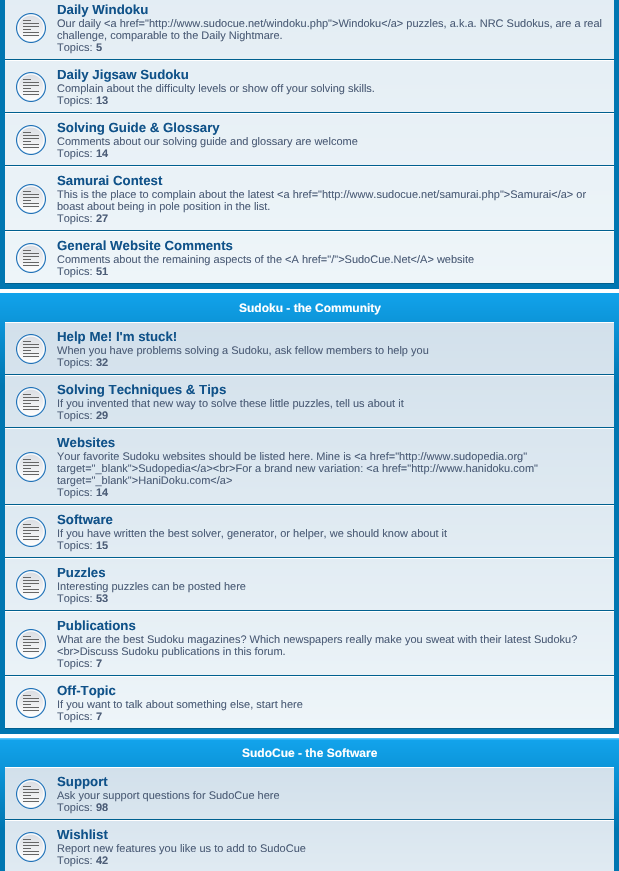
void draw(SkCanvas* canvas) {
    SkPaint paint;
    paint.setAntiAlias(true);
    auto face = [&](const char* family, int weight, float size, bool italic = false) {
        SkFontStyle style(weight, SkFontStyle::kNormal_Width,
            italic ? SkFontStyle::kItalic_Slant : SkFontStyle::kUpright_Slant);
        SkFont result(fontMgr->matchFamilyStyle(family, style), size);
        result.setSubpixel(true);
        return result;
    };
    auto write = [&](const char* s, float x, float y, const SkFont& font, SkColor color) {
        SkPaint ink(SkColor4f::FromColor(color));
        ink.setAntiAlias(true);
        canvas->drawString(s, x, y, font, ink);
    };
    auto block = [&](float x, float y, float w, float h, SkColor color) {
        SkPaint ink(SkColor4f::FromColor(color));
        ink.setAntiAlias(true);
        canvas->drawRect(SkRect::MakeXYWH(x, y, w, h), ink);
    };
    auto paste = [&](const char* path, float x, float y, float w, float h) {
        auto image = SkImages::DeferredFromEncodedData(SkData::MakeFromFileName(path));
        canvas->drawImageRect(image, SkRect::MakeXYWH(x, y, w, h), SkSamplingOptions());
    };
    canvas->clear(SK_ColorWHITE);
    block(0, 0, 619, 289, SkColorSetRGB(0, 118, 177));
    {
        const SkColor colors[] = {SkColorSetRGB(210, 224, 235), SkColorSetRGB(238, 245, 249)};
        const float stops[] = {0, 1};
        const SkPoint ends[] = {{309, -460}, {310, 284}};
        paint.setShader(SkGradientShader::MakeLinear(ends, colors, stops, 2, SkTileMode::kClamp));
        paint.setAlpha(255);
    }
    canvas->drawRect(SkRect::MakeXYWH(5, 0, 609, 283), paint);
    block(5, 59, 609, 1, SkColorSetRGB(0, 96, 143));
    paste("pic1.png", 16, 13, 30, 30);
    auto kFont1 = face("Liberation Sans", 700, 13.25f);
    write("Daily Windoku", 57, 14, kFont1, SkColorSetRGB(16, 82, 137));
    auto kFont2 = face("Liberation Sans", 400, 11);
    write("Our daily <a href=\"http://www.sudocue.net/windoku.php\">Windoku</a> puzzles, a.k.a. NRC Sudokus, are a real", 57, 27, kFont2, SkColorSetRGB(76, 93, 119));
    write("challenge, comparable to the Daily Nightmare.", 57, 39, kFont2, SkColorSetRGB(76, 93, 119));
    write("Topics:", 57, 51, kFont2, SkColorSetRGB(76, 93, 119));
    auto kFont3 = face("Liberation Sans", 700, 11);
    write("5", 96, 51, kFont3, SkColorSetRGB(76, 93, 119));
    block(5, 60, 609, 1, SK_ColorWHITE);
    block(5, 112, 609, 1, SkColorSetRGB(0, 96, 143));
    paste("pic2.png", 16, 72, 30, 30);
    write("Daily Jigsaw Sudoku", 57, 79, kFont1, SkColorSetRGB(16, 82, 137));
    write("Complain about the difficulty levels or show off your solving skills.", 57, 92, kFont2, SkColorSetRGB(76, 93, 119));
    write("Topics:", 57, 104, kFont2, SkColorSetRGB(76, 93, 119));
    write("13", 96, 104, kFont3, SkColorSetRGB(76, 93, 119));
    block(5, 113, 609, 1, SK_ColorWHITE);
    block(5, 165, 609, 1, SkColorSetRGB(0, 96, 143));
    paste("pic3.png", 16, 125, 30, 30);
    write("Solving Guide & Glossary", 57, 132, kFont1, SkColorSetRGB(16, 82, 137));
    write("Comments about our solving guide and glossary are welcome", 57, 145, kFont2, SkColorSetRGB(76, 93, 119));
    write("Topics:", 57, 157, kFont2, SkColorSetRGB(76, 93, 119));
    write("14", 96, 157, kFont3, SkColorSetRGB(76, 93, 119));
    block(5, 166, 609, 1, SK_ColorWHITE);
    block(5, 230, 609, 1, SkColorSetRGB(0, 96, 143));
    paste("pic4.png", 16, 184, 30, 30);
    write("Samurai Contest", 57, 185, kFont1, SkColorSetRGB(16, 82, 137));
    write("This is the place to complain about the latest <a href=\"http://www.sudocue.net/samurai.php\">Samurai</a> or", 57, 198, kFont2, SkColorSetRGB(76, 93, 119));
    write("boast about being in pole position in the list.", 57, 210, kFont2, SkColorSetRGB(76, 93, 119));
    write("Topics:", 57, 222, kFont2, SkColorSetRGB(76, 93, 119));
    write("27", 96, 222, kFont3, SkColorSetRGB(76, 93, 119));
    block(5, 231, 609, 1, SK_ColorWHITE);
    block(5, 283, 609, 1, SkColorSetRGB(0, 96, 143));
    paste("pic5.png", 16, 243, 30, 30);
    write("General Website Comments", 57, 250, kFont1, SkColorSetRGB(16, 82, 137));
    write("Comments about the remaining aspects of the <A href=\"/\">SudoCue.Net</A> website", 57, 263, kFont2, SkColorSetRGB(76, 93, 119));
    write("Topics:", 57, 275, kFont2, SkColorSetRGB(76, 93, 119));
    write("51", 96, 275, kFont3, SkColorSetRGB(76, 93, 119));
    {
        const SkColor colors[] = {SkColorSetRGB(106, 206, 255), SkColorSetRGB(18, 163, 235), SkColorSetRGB(0, 118, 177), SkColorSetRGB(0, 118, 177)};
        const float stops[] = {0, 0, 0.21f, 1};
        const SkPoint ends[] = {{310, 293}, {310, 734}};
        paint.setShader(SkGradientShader::MakeLinear(ends, colors, stops, 4, SkTileMode::kClamp));
        paint.setAlpha(255);
    }
    canvas->drawRect(SkRect::MakeXYWH(0, 293, 619, 441), paint);
    auto kFont4 = face("Liberation Sans", 700, 12);
    write("Sudoku - the Community", 239, 312, kFont4, SK_ColorWHITE);
    {
        const SkColor colors[] = {SkColorSetRGB(210, 224, 235), SkColorSetRGB(238, 245, 249)};
        const float stops[] = {0, 1};
        const SkPoint ends[] = {{310, 322}, {310, 729}};
        paint.setShader(SkGradientShader::MakeLinear(ends, colors, stops, 2, SkTileMode::kClamp));
        paint.setAlpha(255);
    }
    canvas->drawRect(SkRect::MakeXYWH(5, 323, 609, 405), paint);
    block(5, 322, 609, 1, SK_ColorWHITE);
    block(5, 374, 609, 1, SkColorSetRGB(0, 96, 143));
    paste("pic6.png", 16, 334, 30, 30);
    write("Help Me! I'm stuck!", 57, 341, kFont1, SkColorSetRGB(16, 82, 137));
    write("When you have problems solving a Sudoku, ask fellow members to help you", 57, 354, kFont2, SkColorSetRGB(76, 93, 119));
    write("Topics:", 57, 366, kFont2, SkColorSetRGB(76, 93, 119));
    write("32", 96, 366, kFont3, SkColorSetRGB(76, 93, 119));
    block(5, 375, 609, 1, SK_ColorWHITE);
    block(5, 427, 609, 1, SkColorSetRGB(0, 96, 143));
    paste("pic7.png", 16, 387, 30, 30);
    write("Solving Techniques & Tips", 57, 394, kFont1, SkColorSetRGB(16, 82, 137));
    write("If you invented that new way to solve these little puzzles, tell us about it", 57, 407, kFont2, SkColorSetRGB(76, 93, 119));
    write("Topics:", 57, 419, kFont2, SkColorSetRGB(76, 93, 119));
    write("29", 96, 419, kFont3, SkColorSetRGB(76, 93, 119));
    block(5, 428, 609, 1, SK_ColorWHITE);
    block(5, 504, 609, 1, SkColorSetRGB(0, 96, 143));
    paste("pic8.png", 16, 452, 30, 30);
    write("Websites", 57, 447, kFont1, SkColorSetRGB(16, 82, 137));
    write("Your favorite Sudoku websites should be listed here. Mine is <a href=\"http://www.sudopedia.org\"", 57, 460, kFont2, SkColorSetRGB(76, 93, 119));
    write("target=\"_blank\">Sudopedia</a><br>For a brand new variation: <a href=\"http://www.hanidoku.com\"", 57, 472, kFont2, SkColorSetRGB(76, 93, 119));
    write("target=\"_blank\">HaniDoku.com</a>", 57, 484, kFont2, SkColorSetRGB(76, 93, 119));
    write("Topics:", 57, 496, kFont2, SkColorSetRGB(76, 93, 119));
    write("14", 96, 496, kFont3, SkColorSetRGB(76, 93, 119));
    block(5, 505, 609, 1, SK_ColorWHITE);
    block(5, 557, 609, 1, SkColorSetRGB(0, 96, 143));
    paste("pic9.png", 16, 517, 30, 30);
    write("Software", 57, 524, kFont1, SkColorSetRGB(16, 82, 137));
    write("If you have written the best solver, generator, or helper, we should know about it", 57, 537, kFont2, SkColorSetRGB(76, 93, 119));
    write("Topics:", 57, 549, kFont2, SkColorSetRGB(76, 93, 119));
    write("15", 96, 549, kFont3, SkColorSetRGB(76, 93, 119));
    block(5, 558, 609, 1, SK_ColorWHITE);
    block(5, 610, 609, 1, SkColorSetRGB(0, 96, 143));
    paste("pic10.png", 16, 570, 30, 30);
    write("Puzzles", 57, 577, kFont1, SkColorSetRGB(16, 82, 137));
    write("Interesting puzzles can be posted here", 57, 590, kFont2, SkColorSetRGB(76, 93, 119));
    write("Topics:", 57, 602, kFont2, SkColorSetRGB(76, 93, 119));
    write("53", 96, 602, kFont3, SkColorSetRGB(76, 93, 119));
    block(5, 611, 609, 1, SK_ColorWHITE);
    block(5, 675, 609, 1, SkColorSetRGB(0, 96, 143));
    paste("pic11.png", 16, 629, 30, 30);
    write("Publications", 57, 630, kFont1, SkColorSetRGB(16, 82, 137));
    write("What are the best Sudoku magazines? Which newspapers really make you sweat with their latest Sudoku?", 57, 643, kFont2, SkColorSetRGB(76, 93, 119));
    write("<br>Discuss Sudoku publications in this forum.", 57, 655, kFont2, SkColorSetRGB(76, 93, 119));
    write("Topics:", 57, 667, kFont2, SkColorSetRGB(76, 93, 119));
    write("7", 96, 667, kFont3, SkColorSetRGB(76, 93, 119));
    block(5, 676, 609, 1, SK_ColorWHITE);
    block(5, 728, 609, 1, SkColorSetRGB(0, 96, 143));
    paste("pic12.png", 16, 688, 30, 30);
    write("Off-Topic", 57, 695, kFont1, SkColorSetRGB(16, 82, 137));
    write("If you want to talk about something else, start here", 57, 708, kFont2, SkColorSetRGB(76, 93, 119));
    write("Topics:", 57, 720, kFont2, SkColorSetRGB(76, 93, 119));
    write("7", 96, 720, kFont3, SkColorSetRGB(76, 93, 119));
    {
        const SkColor colors[] = {SkColorSetRGB(106, 206, 255), SkColorSetRGB(18, 163, 235), SkColorSetRGB(0, 118, 177), SkColorSetRGB(0, 118, 177)};
        const float stops[] = {0, 0.01f, 0.37f, 1};
        const SkPoint ends[] = {{310, 738}, {310, 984}};
        paint.setShader(SkGradientShader::MakeLinear(ends, colors, stops, 4, SkTileMode::kClamp));
        paint.setAlpha(255);
    }
    canvas->drawRect(SkRect::MakeXYWH(0, 738, 619, 133), paint);
    write("SudoCue - the Software", 242, 757, kFont4, SK_ColorWHITE);
    {
        const SkColor colors[] = {SkColorSetRGB(210, 224, 235), SkColorSetRGB(238, 245, 249)};
        const float stops[] = {0, 1};
        const SkPoint ends[] = {{310, 767}, {310, 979}};
        paint.setShader(SkGradientShader::MakeLinear(ends, colors, stops, 2, SkTileMode::kClamp));
        paint.setAlpha(255);
    }
    canvas->drawRect(SkRect::MakeXYWH(5, 768, 609, 103), paint);
    block(5, 767, 609, 1, SK_ColorWHITE);
    block(5, 819, 609, 1, SkColorSetRGB(0, 96, 143));
    paste("pic13.png", 16, 779, 30, 30);
    write("Support", 57, 786, kFont1, SkColorSetRGB(16, 82, 137));
    write("Ask your support questions for SudoCue here", 57, 799, kFont2, SkColorSetRGB(76, 93, 119));
    write("Topics:", 57, 811, kFont2, SkColorSetRGB(76, 93, 119));
    write("98", 96, 811, kFont3, SkColorSetRGB(76, 93, 119));
    block(5, 820, 609, 1, SK_ColorWHITE);
    paste("pic14.png", 16, 832, 30, 30);
    write("Wishlist", 57, 839, kFont1, SkColorSetRGB(16, 82, 137));
    write("Report new features you like us to add to SudoCue", 57, 852, kFont2, SkColorSetRGB(76, 93, 119));
    write("Topics:", 57, 864, kFont2, SkColorSetRGB(76, 93, 119));
    write("42", 96, 864, kFont3, SkColorSetRGB(76, 93, 119));
}
